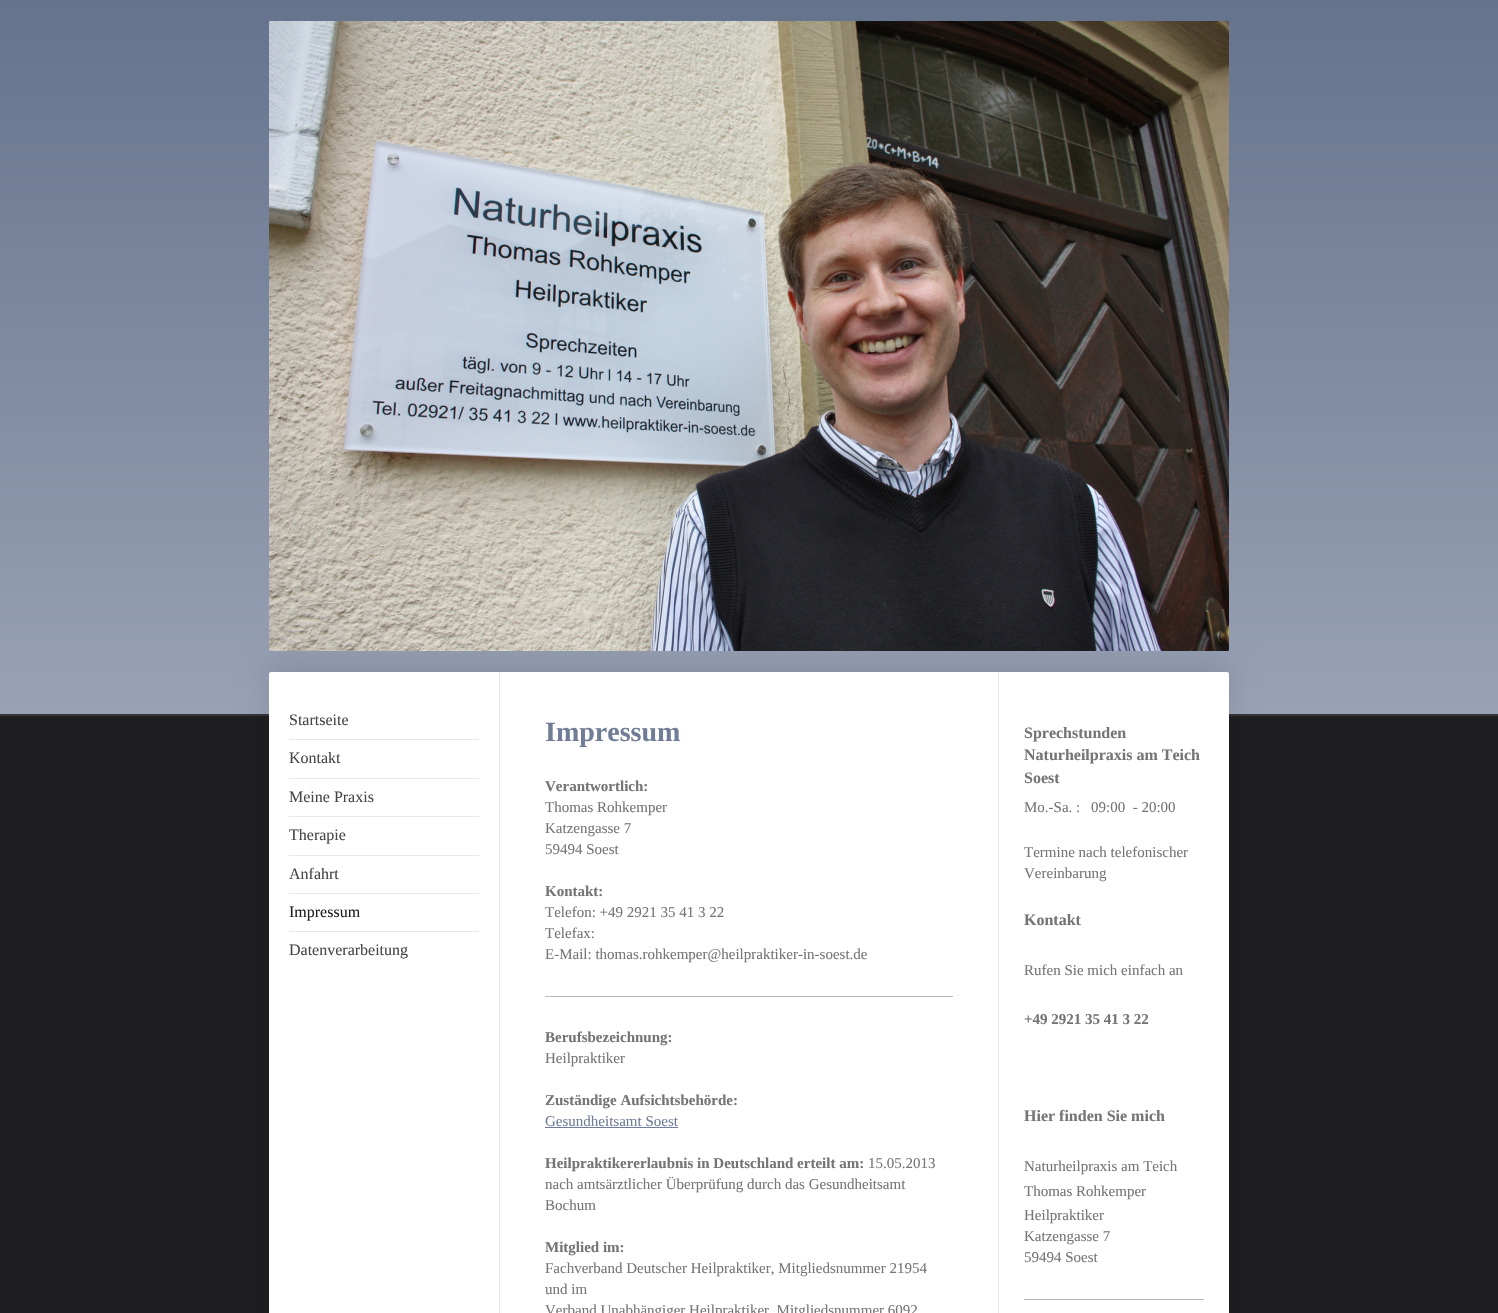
void draw(SkCanvas* canvas) {
    SkPaint paint;
    paint.setAntiAlias(true);
    auto face = [&](const char* family, int weight, float size, bool italic = false) {
        SkFontStyle style(weight, SkFontStyle::kNormal_Width,
            italic ? SkFontStyle::kItalic_Slant : SkFontStyle::kUpright_Slant);
        SkFont result(fontMgr->matchFamilyStyle(family, style), size);
        result.setSubpixel(true);
        return result;
    };
    auto write = [&](const char* s, float x, float y, const SkFont& font, SkColor color) {
        SkPaint ink(SkColor4f::FromColor(color));
        ink.setAntiAlias(true);
        canvas->drawString(s, x, y, font, ink);
    };
    auto block = [&](float x, float y, float w, float h, SkColor color) {
        SkPaint ink(SkColor4f::FromColor(color));
        ink.setAntiAlias(true);
        canvas->drawRect(SkRect::MakeXYWH(x, y, w, h), ink);
    };
    auto card = [&](float x, float y, float w, float h, float radius, SkColor color) {
        SkPaint ink(SkColor4f::FromColor(color));
        ink.setAntiAlias(true);
        canvas->drawRoundRect(SkRect::MakeXYWH(x, y, w, h), radius, radius, ink);
    };
    auto paste = [&](const char* path, float x, float y, float w, float h) {
        auto image = SkImages::DeferredFromEncodedData(SkData::MakeFromFileName(path));
        canvas->drawImageRect(image, SkRect::MakeXYWH(x, y, w, h), SkSamplingOptions());
    };
    canvas->clear(SkColorSetRGB(30, 30, 34));
    paint.setColor(SkColorSetARGB(26, 255, 255, 255));
    paint.setMaskFilter(SkMaskFilter::MakeBlur(kNormal_SkBlurStyle, 0.5f));
    canvas->drawRect(SkRect::MakeXYWH(0, 2, 1498, 714), paint);
    paint.setMaskFilter(nullptr);
    {
        const SkColor colors[] = {SkColorSetRGB(153, 162, 181), SkColorSetRGB(101, 115, 141)};
        const float stops[] = {0, 1};
        const SkPoint ends[] = {{0, 714}, {0, 0}};
        paint.setShader(SkGradientShader::MakeLinear(ends, colors, stops, 2, SkTileMode::kClamp));
        paint.setAlpha(255);
    }
    canvas->drawRect(SkRect::MakeXYWH(0, 0, 1498, 714), paint);
    paste("pic1.png", 269, 21, 960, 630);
    paint.setShader(nullptr);
    paint.setColor(SkColorSetARGB(26, 0, 0, 0));
    paint.setMaskFilter(SkMaskFilter::MakeBlur(kNormal_SkBlurStyle, 15));
    canvas->drawRoundRect(SkRect::MakeXYWH(269, 662, 960, 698), 2, 2, paint);
    paint.setMaskFilter(nullptr);
    paste("pic2.png", 269, 21, 960, 630);
    card(269, 672, 960, 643, 2, SK_ColorWHITE);
    block(289, 739, 190, 1, SkColorSetRGB(230, 230, 230));
    auto kFont1 = face("Liberation Serif", 400, 16);
    write("Startseite", 289, 725, kFont1, SkColorSetRGB(71, 71, 71));
    block(289, 778, 190, 1, SkColorSetRGB(230, 230, 230));
    write("Kontakt", 289, 763, kFont1, SkColorSetRGB(71, 71, 71));
    block(289, 816, 190, 1, SkColorSetRGB(230, 230, 230));
    write("Meine Praxis", 289, 802, kFont1, SkColorSetRGB(71, 71, 71));
    block(289, 855, 190, 1, SkColorSetRGB(230, 230, 230));
    write("Therapie", 289, 840, kFont1, SkColorSetRGB(71, 71, 71));
    block(289, 893, 190, 1, SkColorSetRGB(230, 230, 230));
    write("Anfahrt", 289, 879, kFont1, SkColorSetRGB(71, 71, 71));
    block(289, 931, 190, 1, SkColorSetRGB(230, 230, 230));
    write("Impressum", 289, 917, kFont1, SkColorSetRGB(30, 30, 34));
    write("Datenverarbeitung", 289, 955, kFont1, SkColorSetRGB(71, 71, 71));
    block(998, 672, 1, 641, SkColorSetRGB(230, 230, 230));
    block(499, 672, 1, 641, SkColorSetRGB(230, 230, 230));
    auto kFont2 = face("Liberation Serif", 700, 28);
    write("Impressum", 545, 741, kFont2, SkColorSetRGB(113, 125, 151));
    auto kFont3 = face("Liberation Serif", 700, 15);
    write("Verantwortlich:", 545, 791, kFont3, SkColorSetRGB(117, 117, 117));
    auto kFont4 = face("Liberation Serif", 400, 15);
    write("Thomas Rohkemper", 545, 812, kFont4, SkColorSetRGB(117, 117, 117));
    write("Katzengasse 7", 545, 833, kFont4, SkColorSetRGB(117, 117, 117));
    write("59494 Soest", 545, 854, kFont4, SkColorSetRGB(117, 117, 117));
    write("Kontakt:", 545, 896, kFont3, SkColorSetRGB(117, 117, 117));
    write("Telefon: +49 2921 35 41 3 22", 545, 917, kFont4, SkColorSetRGB(117, 117, 117));
    write("Telefax:", 545, 938, kFont4, SkColorSetRGB(117, 117, 117));
    write("E-Mail: thomas.rohkemper@heilpraktiker-in-soest.de", 545, 959, kFont4, SkColorSetRGB(117, 117, 117));
    block(545, 996, 408, 1, SkColorSetRGB(186, 186, 186));
    write("Berufsbezeichnung:", 545, 1042, kFont3, SkColorSetRGB(117, 117, 117));
    write("Heilpraktiker", 545, 1063, kFont4, SkColorSetRGB(117, 117, 117));
    write("Zuständige Aufsichtsbehörde:", 545, 1105, kFont3, SkColorSetRGB(117, 117, 117));
    write("Gesundheitsamt Soest", 545, 1126, kFont4, SkColorSetRGB(113, 125, 151));
    block(545, 1127, 133, 1, SkColorSetRGB(113, 125, 151));
    write("Heilpraktikererlaubnis in Deutschland erteilt am:", 545, 1168, kFont3, SkColorSetRGB(117, 117, 117));
    write("15.05.2013", 868, 1168, kFont4, SkColorSetRGB(117, 117, 117));
    write("nach amtsärztlicher Überprüfung durch das Gesundheitsamt", 545, 1189, kFont4, SkColorSetRGB(117, 117, 117));
    write("Bochum", 545, 1210, kFont4, SkColorSetRGB(117, 117, 117));
    write("Mitglied im:", 545, 1252, kFont3, SkColorSetRGB(117, 117, 117));
    write("Fachverband Deutscher Heilpraktiker, Mitgliedsnummer 21954", 545, 1273, kFont4, SkColorSetRGB(117, 117, 117));
    write("und im", 545, 1294, kFont4, SkColorSetRGB(117, 117, 117));
    write("Verband Unabhängiger Heilpraktiker, Mitgliedsnummer 6092", 545, 1315, kFont4, SkColorSetRGB(117, 117, 117));
    auto kFont5 = face("Liberation Serif", 700, 16);
    write("Sprechstunden", 1024, 738, kFont5, SkColorSetRGB(117, 117, 117));
    write("Naturheilpraxis am Teich", 1024, 760, kFont5, SkColorSetRGB(117, 117, 117));
    write("Soest", 1024, 783, kFont5, SkColorSetRGB(117, 117, 117));
    write("Mo.-Sa. :", 1024, 812, kFont4, SkColorSetRGB(117, 117, 117));
    write("09:00  - 20:00", 1091, 812, kFont4, SkColorSetRGB(117, 117, 117));
    write("Termine nach telefonischer", 1024, 857, kFont4, SkColorSetRGB(117, 117, 117));
    write("Vereinbarung", 1024, 878, kFont4, SkColorSetRGB(117, 117, 117));
    write("Kontakt", 1024, 925, kFont5, SkColorSetRGB(117, 117, 117));
    write("Rufen Sie mich einfach an", 1024, 975, kFont4, SkColorSetRGB(117, 117, 117));
    write("+49 2921 35 41 3 22", 1024, 1024, kFont3, SkColorSetRGB(117, 117, 117));
    write("Hier finden Sie mich", 1024, 1121, kFont5, SkColorSetRGB(117, 117, 117));
    write("Naturheilpraxis am Teich", 1024, 1171, kFont4, SkColorSetRGB(117, 117, 117));
    write("Thomas Rohkemper", 1024, 1196, kFont4, SkColorSetRGB(117, 117, 117));
    write("Heilpraktiker", 1024, 1220, kFont4, SkColorSetRGB(117, 117, 117));
    write("Katzengasse 7", 1024, 1241, kFont4, SkColorSetRGB(117, 117, 117));
    write("59494 Soest", 1024, 1262, kFont4, SkColorSetRGB(117, 117, 117));
    block(1024, 1299, 180, 1, SkColorSetRGB(186, 186, 186));
}
